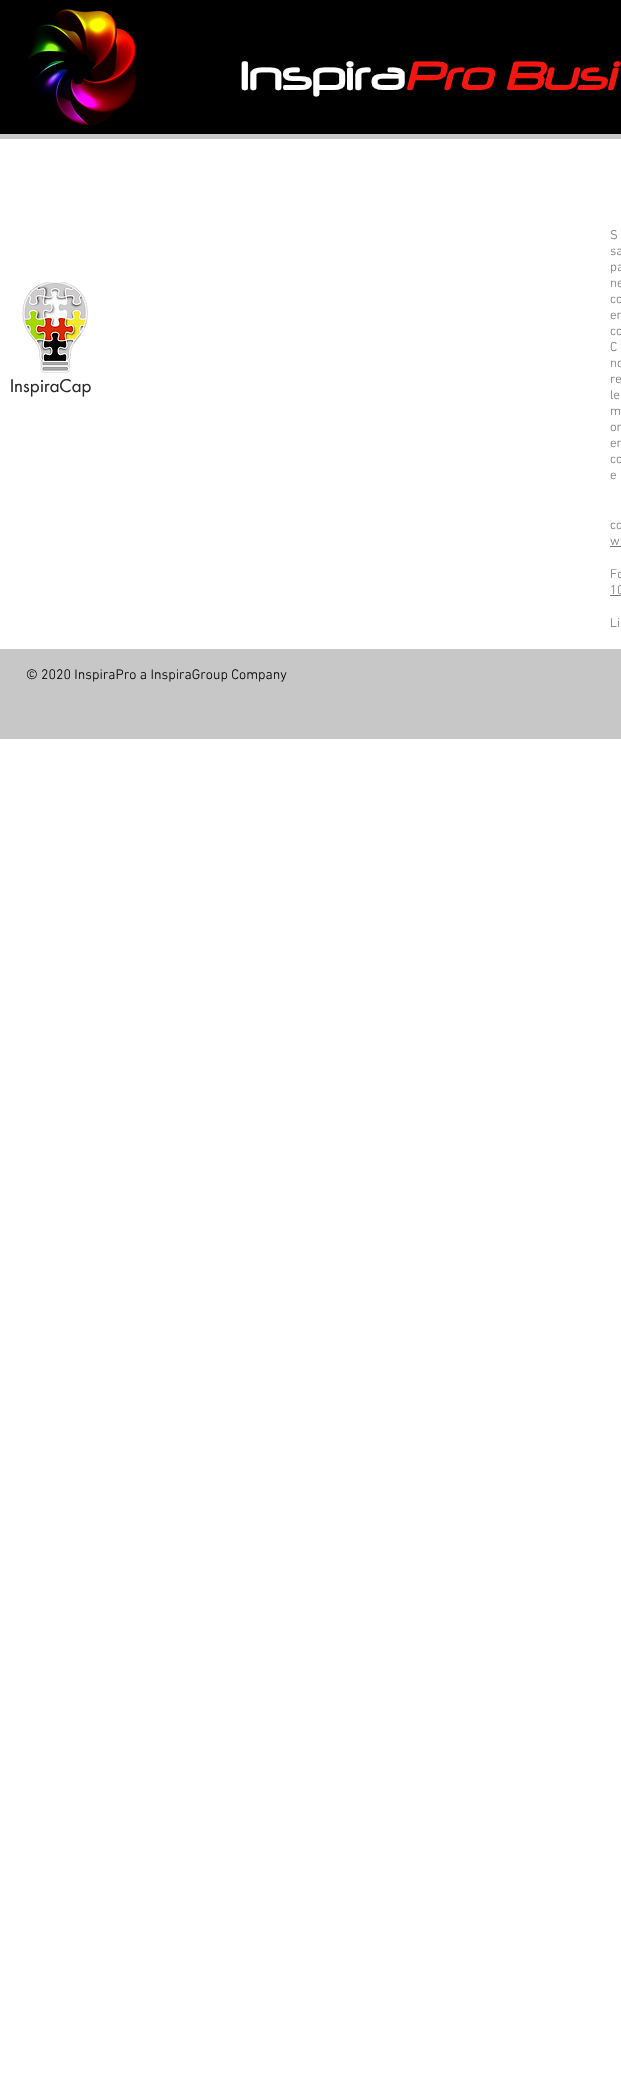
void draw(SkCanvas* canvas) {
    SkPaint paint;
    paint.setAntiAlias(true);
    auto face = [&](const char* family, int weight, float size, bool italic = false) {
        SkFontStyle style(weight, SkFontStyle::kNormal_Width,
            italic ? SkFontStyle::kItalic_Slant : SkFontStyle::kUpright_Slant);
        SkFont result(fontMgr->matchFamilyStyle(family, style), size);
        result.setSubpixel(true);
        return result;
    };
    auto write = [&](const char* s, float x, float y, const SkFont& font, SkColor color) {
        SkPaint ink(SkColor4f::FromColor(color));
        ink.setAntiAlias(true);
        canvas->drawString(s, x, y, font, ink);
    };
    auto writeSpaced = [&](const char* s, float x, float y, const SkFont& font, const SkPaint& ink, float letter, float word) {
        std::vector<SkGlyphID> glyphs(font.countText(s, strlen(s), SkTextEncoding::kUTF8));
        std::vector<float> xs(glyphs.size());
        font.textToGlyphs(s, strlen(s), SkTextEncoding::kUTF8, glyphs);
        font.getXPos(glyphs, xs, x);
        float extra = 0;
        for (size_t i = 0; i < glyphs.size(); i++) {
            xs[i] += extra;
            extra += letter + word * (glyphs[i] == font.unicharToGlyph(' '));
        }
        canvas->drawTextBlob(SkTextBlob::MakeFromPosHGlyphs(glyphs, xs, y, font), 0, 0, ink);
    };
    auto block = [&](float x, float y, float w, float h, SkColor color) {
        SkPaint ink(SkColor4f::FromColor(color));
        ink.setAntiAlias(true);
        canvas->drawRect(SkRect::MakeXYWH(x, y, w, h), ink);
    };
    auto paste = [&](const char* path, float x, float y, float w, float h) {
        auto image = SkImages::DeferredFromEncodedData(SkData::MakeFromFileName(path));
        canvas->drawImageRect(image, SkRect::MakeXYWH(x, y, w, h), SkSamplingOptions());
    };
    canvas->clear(SK_ColorWHITE);
    block(0, 0, 621, 134, SK_ColorBLACK);
    block(0, 134, 621, 5, SkColorSetRGB(199, 199, 199));
    paste("pic1.png", 27, 9, 109, 117);
    auto kFont1 = face("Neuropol", 700, 38);
    write("Inspira", 240, 90, kFont1, SK_ColorWHITE);
    auto kFont2 = face("Neuropol", 700, 38, true);
    write("Pro Busi", 405, 90, kFont2, SkColorSetRGB(244, 23, 17));
    paste("pic2.png", 22, 282, 66, 91);
    auto kFont3 = face("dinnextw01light", 300, 13);
    paint.setColor(SkColorSetRGB(118, 118, 118));
    writeSpaced("S", 610, 239, kFont3, paint, 0, 1);
    writeSpaced("sa", 610, 255, kFont3, paint, 0, 2);
    writeSpaced("pa", 610, 271, kFont3, paint, 0, 6);
    writeSpaced("ne", 610, 287, kFont3, paint, 0, 5);
    writeSpaced("co", 610, 303, kFont3, paint, 0, 4);
    writeSpaced("en", 610, 319, kFont3, paint, 0, 1);
    writeSpaced("co", 610, 335, kFont3, paint, 0, 1);
    writeSpaced("C", 610, 351, kFont3, paint, 0, 10);
    writeSpaced("nc", 610, 367, kFont3, paint, 0, 2);
    writeSpaced("re", 610, 383, kFont3, paint, 0, 4);
    writeSpaced("le", 610, 399, kFont3, paint, 0, 7);
    writeSpaced("m", 610, 415, kFont3, paint, 0, 4);
    writeSpaced("or", 610, 431, kFont3, paint, 0, 8);
    writeSpaced("en", 610, 447, kFont3, paint, 0, 1);
    writeSpaced("co", 610, 463, kFont3, paint, 0, 5);
    write("e", 610, 479, kFont3, SkColorSetRGB(118, 118, 118));
    write("co", 610, 529, kFont3, SkColorSetRGB(118, 118, 118));
    write("w", 610, 545, kFont3, SkColorSetRGB(118, 118, 118));
    block(610, 546, 11, 1, SkColorSetRGB(118, 118, 118));
    write("Fc", 610, 578, kFont3, SkColorSetRGB(118, 118, 118));
    write("10", 610, 594, kFont3, SkColorSetRGB(118, 118, 118));
    block(610, 595, 11, 1, SkColorSetRGB(118, 118, 118));
    write("Li", 610, 627, kFont3, SkColorSetRGB(118, 118, 118));
    auto kFont4 = face("futura", 400, 17);
    write("InspiraCap", 10, 392, kFont4, SkColorSetRGB(41, 41, 41));
    block(0, 649, 621, 90, SkColorSetRGB(199, 199, 199));
    auto kFont5 = face("dinnextw01light", 300, 14);
    write("© 2020 InspiraPro a InspiraGroup Company", 26, 679, kFont5, SK_ColorBLACK);
}
